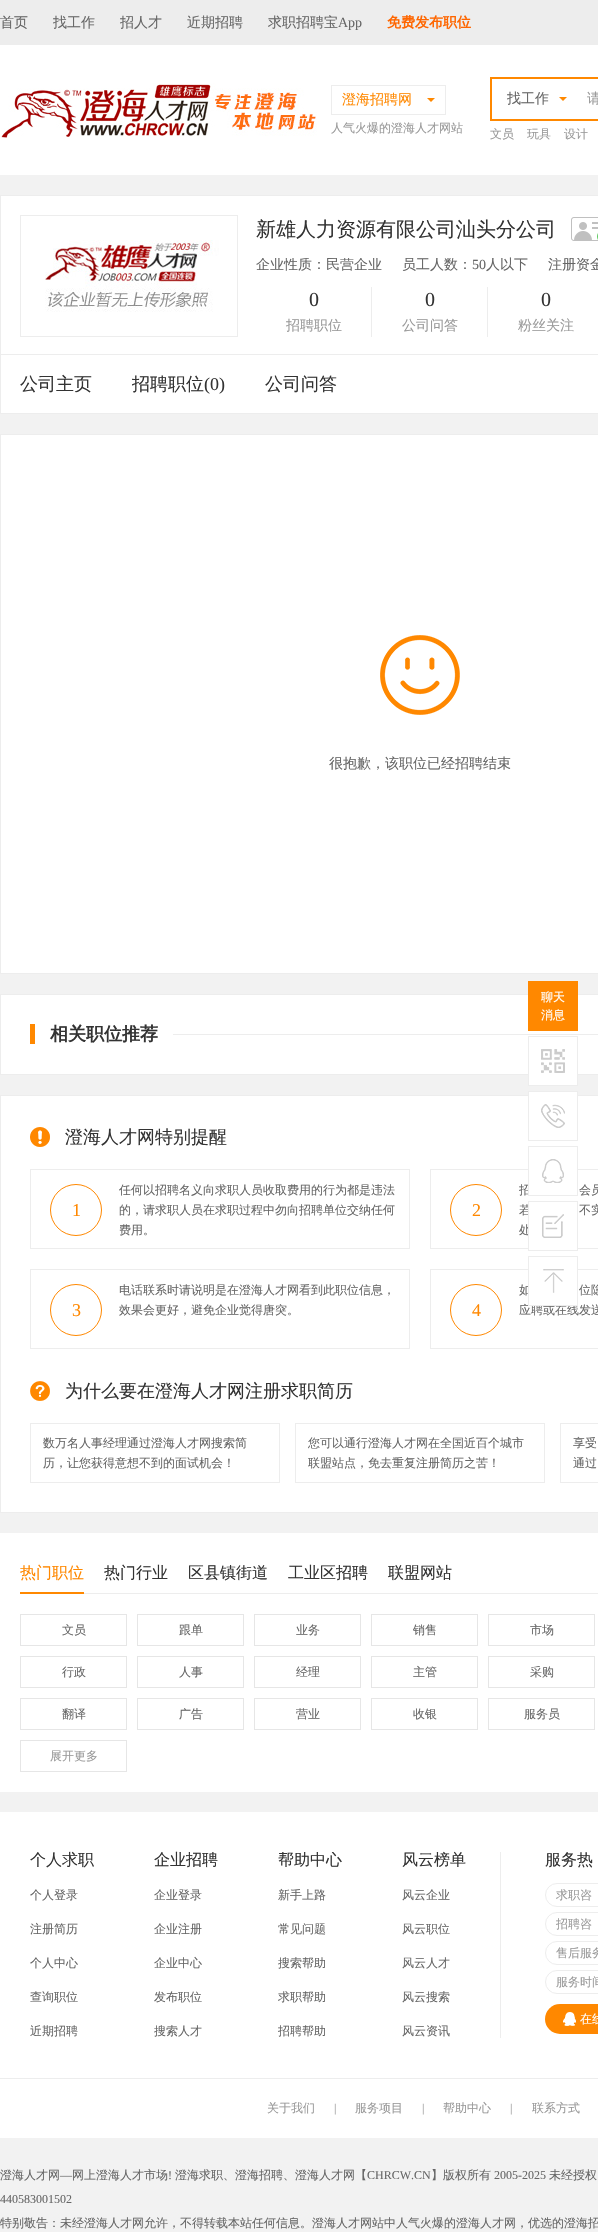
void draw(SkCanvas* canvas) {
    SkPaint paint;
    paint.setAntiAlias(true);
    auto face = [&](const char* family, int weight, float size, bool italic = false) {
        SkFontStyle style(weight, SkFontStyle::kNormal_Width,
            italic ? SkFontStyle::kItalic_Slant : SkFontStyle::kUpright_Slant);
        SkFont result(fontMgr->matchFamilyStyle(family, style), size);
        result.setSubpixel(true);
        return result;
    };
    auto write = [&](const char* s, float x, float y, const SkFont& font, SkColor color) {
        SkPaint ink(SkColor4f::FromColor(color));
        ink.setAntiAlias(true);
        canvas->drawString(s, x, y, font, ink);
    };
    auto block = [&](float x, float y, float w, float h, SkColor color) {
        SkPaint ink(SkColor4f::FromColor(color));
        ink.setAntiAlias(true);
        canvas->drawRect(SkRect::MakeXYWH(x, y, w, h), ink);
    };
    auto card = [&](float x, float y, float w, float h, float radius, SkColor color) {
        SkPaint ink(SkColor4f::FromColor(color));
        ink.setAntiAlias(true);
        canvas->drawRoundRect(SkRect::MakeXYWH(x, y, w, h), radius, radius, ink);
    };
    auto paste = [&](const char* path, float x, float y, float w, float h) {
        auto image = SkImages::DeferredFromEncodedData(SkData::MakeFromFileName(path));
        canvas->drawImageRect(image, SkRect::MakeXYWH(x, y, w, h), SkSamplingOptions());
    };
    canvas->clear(SkColorSetRGB(242, 242, 242));
    block(0, 0, 598, 45, SkColorSetRGB(237, 237, 237));
    auto kFont1 = face("WenQuanYi Zen Hei", 500, 14);
    write("首页", 0, 27, kFont1, SkColorSetRGB(102, 102, 102));
    write("找工作", 53, 27, kFont1, SkColorSetRGB(102, 102, 102));
    write("招人才", 120, 27, kFont1, SkColorSetRGB(102, 102, 102));
    write("近期招聘", 187, 27, kFont1, SkColorSetRGB(102, 102, 102));
    write("求职招聘宝", 268, 27, kFont1, SkColorSetRGB(102, 102, 102));
    auto kFont2 = face("Liberation Serif", 400, 14);
    write("App", 338, 27, kFont2, SkColorSetRGB(102, 102, 102));
    auto kFont3 = face("WenQuanYi Zen Hei", 700, 14);
    write("免费发布职位", 387, 27, kFont3, SkColorSetRGB(255, 102, 0));
    block(0, 45, 598, 130, SK_ColorWHITE);
    paste("pic1.png", 1, 83, 316, 55);
    paint.setStyle(SkPaint::kStroke_Style);
    paint.setStrokeWidth(1);
    paint.setColor(SkColorSetRGB(237, 237, 237));
    canvas->drawRect(SkRect::MakeXYWH(331.5f, 85.5f, 114, 29), paint);
    write("澄海招聘网", 342, 104, kFont1, SkColorSetRGB(255, 136, 0));
    paint.setStyle(SkPaint::kFill_Style);
    paint.setColor(SkColorSetRGB(255, 136, 0));
    canvas->drawPath(SkPathBuilder().moveTo(427, 98).lineTo(435, 98).lineTo(431, 102).close().detach(), paint);
    auto kFont4 = face("WenQuanYi Zen Hei", 500, 12);
    write("人气火爆的澄海人才网站", 331, 132, kFont4, SkColorSetRGB(153, 153, 153));
    paint.setStyle(SkPaint::kStroke_Style);
    paint.setStrokeWidth(2);
    canvas->drawRect(SkRect::MakeXYWH(491, 78, 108, 42), paint);
    write("找工作", 507, 103, kFont1, SkColorSetRGB(102, 102, 102));
    paint.setStyle(SkPaint::kFill_Style);
    canvas->drawPath(SkPathBuilder().moveTo(559, 97).lineTo(567, 97).lineTo(563, 101).close().detach(), paint);
    write("请", 587, 103, kFont1, SkColorSetRGB(153, 153, 153));
    write("文员", 490, 138, kFont4, SkColorSetRGB(153, 153, 153));
    write("玩具", 527, 138, kFont4, SkColorSetRGB(153, 153, 153));
    write("设计", 564, 138, kFont4, SkColorSetRGB(153, 153, 153));
    paint.setColor(SK_ColorWHITE);
    canvas->drawRect(SkRect::MakeXYWH(0.5f, 195.5f, 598, 159), paint);
    paint.setStyle(SkPaint::kStroke_Style);
    paint.setStrokeWidth(1);
    paint.setColor(SkColorSetRGB(237, 237, 237));
    canvas->drawRect(SkRect::MakeXYWH(0.5f, 195.5f, 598, 159), paint);
    canvas->drawRect(SkRect::MakeXYWH(20.5f, 215.5f, 217, 121), paint);
    paste("pic2.png", 45, 240, 174, 72);
    auto kFont5 = face("WenQuanYi Zen Hei", 500, 20);
    write("新雄人力资源有限公司汕头分公司", 256, 236, kFont5, SkColorSetRGB(51, 51, 51));
    paste("pic3.png", 571, 217, 27, 24);
    canvas->save();
    canvas->clipRect(SkRect::MakeXYWH(256, 258, 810, 14));
    write("企业性质：民营企业", 256, 269, kFont1, SkColorSetRGB(102, 102, 102));
    write("员工人数：", 402, 269, kFont1, SkColorSetRGB(102, 102, 102));
    canvas->restore();
    write("50", 472, 269, kFont2, SkColorSetRGB(102, 102, 102));
    write("人以下", 486, 269, kFont1, SkColorSetRGB(102, 102, 102));
    canvas->save();
    canvas->clipRect(SkRect::MakeXYWH(256, 258, 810, 14));
    write("注册资金", 548, 269, kFont1, SkColorSetRGB(102, 102, 102));
    canvas->restore();
    auto kFont6 = face("Liberation Serif", 400, 20);
    write("0", 309, 306, kFont6, SkColorSetRGB(51, 51, 51));
    block(371, 287, 1, 50, SkColorSetRGB(237, 237, 237));
    write("招聘职位", 286, 330, kFont1, SkColorSetRGB(153, 153, 153));
    write("0", 425, 306, kFont6, SkColorSetRGB(51, 51, 51));
    block(487, 287, 1, 50, SkColorSetRGB(237, 237, 237));
    write("公司问答", 402, 330, kFont1, SkColorSetRGB(153, 153, 153));
    write("0", 541, 306, kFont6, SkColorSetRGB(51, 51, 51));
    write("粉丝关注", 518, 330, kFont1, SkColorSetRGB(153, 153, 153));
    paint.setStyle(SkPaint::kFill_Style);
    paint.setColor(SK_ColorWHITE);
    canvas->drawRect(SkRect::MakeXYWH(0.5f, 354.5f, 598, 59), paint);
    paint.setStyle(SkPaint::kStroke_Style);
    paint.setColor(SkColorSetRGB(237, 237, 237));
    canvas->drawRect(SkRect::MakeXYWH(0.5f, 354.5f, 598, 59), paint);
    auto kFont7 = face("WenQuanYi Zen Hei", 500, 18);
    write("公司主页", 20, 390, kFont7, SkColorSetRGB(51, 51, 51));
    write("招聘职位", 132, 390, kFont7, SkColorSetRGB(51, 51, 51));
    auto kFont8 = face("Liberation Serif", 400, 18);
    write("(0)", 204, 390, kFont8, SkColorSetRGB(51, 51, 51));
    write("公司问答", 265, 390, kFont7, SkColorSetRGB(51, 51, 51));
    paint.setStyle(SkPaint::kFill_Style);
    paint.setColor(SK_ColorWHITE);
    canvas->drawRect(SkRect::MakeXYWH(0.5f, 434.5f, 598, 539), paint);
    paint.setStyle(SkPaint::kStroke_Style);
    paint.setColor(SkColorSetRGB(237, 237, 237));
    canvas->drawRect(SkRect::MakeXYWH(0.5f, 434.5f, 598, 539), paint);
    paste("pic4.png", 380, 635, 80, 80);
    write("很抱歉，该职位已经招聘结束", 329, 768, kFont1, SkColorSetRGB(102, 102, 102));
    paint.setStyle(SkPaint::kFill_Style);
    paint.setColor(SK_ColorWHITE);
    canvas->drawRect(SkRect::MakeXYWH(0.5f, 994.5f, 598, 80), paint);
    paint.setStyle(SkPaint::kStroke_Style);
    paint.setColor(SkColorSetRGB(237, 237, 237));
    canvas->drawRect(SkRect::MakeXYWH(0.5f, 994.5f, 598, 80), paint);
    block(30, 1024, 5, 20, SkColorSetRGB(255, 136, 0));
    auto kFont9 = face("WenQuanYi Zen Hei", 700, 18);
    write("相关职位推荐", 50, 1040, kFont9, SkColorSetRGB(51, 51, 51));
    block(173, 1034, 425, 1, SkColorSetRGB(237, 237, 237));
    paint.setStyle(SkPaint::kFill_Style);
    paint.setColor(SK_ColorWHITE);
    canvas->drawRect(SkRect::MakeXYWH(0.5f, 1095.5f, 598, 417), paint);
    paint.setStyle(SkPaint::kStroke_Style);
    paint.setColor(SkColorSetRGB(237, 237, 237));
    canvas->drawRect(SkRect::MakeXYWH(0.5f, 1095.5f, 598, 417), paint);
    paste("pic5.png", 30, 1127, 20, 20);
    write("澄海人才网特别提醒", 65, 1143, kFont7, SkColorSetRGB(51, 51, 51));
    canvas->drawRect(SkRect::MakeXYWH(30.5f, 1169.5f, 379, 79), paint);
    paint.setColor(SkColorSetRGB(255, 136, 0));
    canvas->drawCircle(76, 1210, 25.5f, paint);
    write("1", 72, 1216, kFont8, SkColorSetRGB(255, 136, 0));
    write("任何以招聘名义向求职人员收取费用的行为都是违法", 119, 1194, kFont4, SkColorSetRGB(102, 102, 102));
    write("的，请求职人员在求职过程中勿向招聘单位交纳任何", 119, 1214, kFont4, SkColorSetRGB(102, 102, 102));
    write("费用。", 119, 1234, kFont4, SkColorSetRGB(102, 102, 102));
    paint.setColor(SkColorSetRGB(237, 237, 237));
    canvas->drawRect(SkRect::MakeXYWH(430.5f, 1169.5f, 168, 79), paint);
    paint.setColor(SkColorSetRGB(255, 136, 0));
    canvas->drawCircle(476, 1210, 25.5f, paint);
    write("2", 472, 1216, kFont8, SkColorSetRGB(255, 136, 0));
    write("招", 519, 1194, kFont4, SkColorSetRGB(102, 102, 102));
    write("会员", 579, 1194, kFont4, SkColorSetRGB(102, 102, 102));
    write("若", 519, 1214, kFont4, SkColorSetRGB(102, 102, 102));
    write("不实", 579, 1214, kFont4, SkColorSetRGB(102, 102, 102));
    write("处", 519, 1234, kFont4, SkColorSetRGB(102, 102, 102));
    paint.setColor(SkColorSetRGB(237, 237, 237));
    canvas->drawRect(SkRect::MakeXYWH(30.5f, 1269.5f, 379, 79), paint);
    paint.setColor(SkColorSetRGB(255, 136, 0));
    canvas->drawCircle(76, 1310, 25.5f, paint);
    write("3", 72, 1316, kFont8, SkColorSetRGB(255, 136, 0));
    write("电话联系时请说明是在澄海人才网看到此职位信息，", 119, 1294, kFont4, SkColorSetRGB(102, 102, 102));
    write("效果会更好，避免企业觉得唐突。", 119, 1314, kFont4, SkColorSetRGB(102, 102, 102));
    paint.setColor(SkColorSetRGB(237, 237, 237));
    canvas->drawRect(SkRect::MakeXYWH(430.5f, 1269.5f, 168, 79), paint);
    paint.setColor(SkColorSetRGB(255, 136, 0));
    canvas->drawCircle(476, 1310, 25.5f, paint);
    write("4", 472, 1316, kFont8, SkColorSetRGB(255, 136, 0));
    write("如", 519, 1294, kFont4, SkColorSetRGB(102, 102, 102));
    write("位隐", 579, 1294, kFont4, SkColorSetRGB(102, 102, 102));
    write("应聘或在线发送", 519, 1314, kFont4, SkColorSetRGB(102, 102, 102));
    paste("pic6.png", 30, 1381, 20, 20);
    write("为什么要在澄海人才网注册求职简历", 65, 1397, kFont7, SkColorSetRGB(51, 51, 51));
    paint.setColor(SkColorSetRGB(237, 237, 237));
    canvas->drawRect(SkRect::MakeXYWH(30.5f, 1423.5f, 249, 59), paint);
    write("数万名人事经理通过澄海人才网搜索简", 43, 1447, kFont4, SkColorSetRGB(102, 102, 102));
    write("历，让您获得意想不到的面试机会！", 43, 1467, kFont4, SkColorSetRGB(102, 102, 102));
    canvas->drawRect(SkRect::MakeXYWH(295.5f, 1423.5f, 249, 59), paint);
    write("您可以通行澄海人才网在全国近百个城市", 308, 1447, kFont4, SkColorSetRGB(102, 102, 102));
    write("联盟站点，免去重复注册简历之苦！", 308, 1467, kFont4, SkColorSetRGB(102, 102, 102));
    canvas->drawRect(SkRect::MakeXYWH(560.5f, 1423.5f, 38, 59), paint);
    write("享受", 573, 1447, kFont4, SkColorSetRGB(102, 102, 102));
    write("通过", 573, 1467, kFont4, SkColorSetRGB(102, 102, 102));
    block(0, 1533, 598, 259, SK_ColorWHITE);
    block(84, 1593, 514, 1, SkColorSetRGB(237, 237, 237));
    auto kFont10 = face("WenQuanYi Zen Hei", 500, 16);
    write("热门职位", 20, 1578, kFont10, SkColorSetRGB(255, 136, 0));
    block(20, 1592, 64, 2, SkColorSetRGB(255, 136, 0));
    write("热门行业", 104, 1578, kFont10, SkColorSetRGB(51, 51, 51));
    write("区县镇街道", 188, 1578, kFont10, SkColorSetRGB(51, 51, 51));
    write("工业区招聘", 288, 1578, kFont10, SkColorSetRGB(51, 51, 51));
    write("联盟网站", 388, 1578, kFont10, SkColorSetRGB(51, 51, 51));
    paint.setColor(SkColorSetRGB(230, 230, 230));
    canvas->drawRect(SkRect::MakeXYWH(20.5f, 1614.5f, 106, 31), paint);
    write("文员", 62, 1634, kFont4, SkColorSetRGB(102, 102, 102));
    canvas->drawRect(SkRect::MakeXYWH(137.5f, 1614.5f, 106, 31), paint);
    write("跟单", 179, 1634, kFont4, SkColorSetRGB(102, 102, 102));
    canvas->drawRect(SkRect::MakeXYWH(254.5f, 1614.5f, 106, 31), paint);
    write("业务", 296, 1634, kFont4, SkColorSetRGB(102, 102, 102));
    canvas->drawRect(SkRect::MakeXYWH(371.5f, 1614.5f, 106, 31), paint);
    write("销售", 413, 1634, kFont4, SkColorSetRGB(102, 102, 102));
    canvas->drawRect(SkRect::MakeXYWH(488.5f, 1614.5f, 106, 31), paint);
    write("市场", 530, 1634, kFont4, SkColorSetRGB(102, 102, 102));
    canvas->drawRect(SkRect::MakeXYWH(20.5f, 1656.5f, 106, 31), paint);
    write("行政", 62, 1676, kFont4, SkColorSetRGB(102, 102, 102));
    canvas->drawRect(SkRect::MakeXYWH(137.5f, 1656.5f, 106, 31), paint);
    write("人事", 179, 1676, kFont4, SkColorSetRGB(102, 102, 102));
    canvas->drawRect(SkRect::MakeXYWH(254.5f, 1656.5f, 106, 31), paint);
    write("经理", 296, 1676, kFont4, SkColorSetRGB(102, 102, 102));
    canvas->drawRect(SkRect::MakeXYWH(371.5f, 1656.5f, 106, 31), paint);
    write("主管", 413, 1676, kFont4, SkColorSetRGB(102, 102, 102));
    canvas->drawRect(SkRect::MakeXYWH(488.5f, 1656.5f, 106, 31), paint);
    write("采购", 530, 1676, kFont4, SkColorSetRGB(102, 102, 102));
    canvas->drawRect(SkRect::MakeXYWH(20.5f, 1698.5f, 106, 31), paint);
    write("翻译", 62, 1718, kFont4, SkColorSetRGB(102, 102, 102));
    canvas->drawRect(SkRect::MakeXYWH(137.5f, 1698.5f, 106, 31), paint);
    write("广告", 179, 1718, kFont4, SkColorSetRGB(102, 102, 102));
    canvas->drawRect(SkRect::MakeXYWH(254.5f, 1698.5f, 106, 31), paint);
    write("营业", 296, 1718, kFont4, SkColorSetRGB(102, 102, 102));
    canvas->drawRect(SkRect::MakeXYWH(371.5f, 1698.5f, 106, 31), paint);
    write("收银", 413, 1718, kFont4, SkColorSetRGB(102, 102, 102));
    canvas->drawRect(SkRect::MakeXYWH(488.5f, 1698.5f, 106, 31), paint);
    write("服务员", 524, 1718, kFont4, SkColorSetRGB(102, 102, 102));
    canvas->drawRect(SkRect::MakeXYWH(20.5f, 1740.5f, 106, 31), paint);
    write("展开更多", 50, 1760, kFont4, SkColorSetRGB(153, 153, 153));
    paint.setColor(SkColorSetRGB(255, 136, 0));
    canvas->drawRect(SkRect::MakeXYWH(528.5f, 981.5f, 49, 49), paint);
    block(529, 982, 48, 48, SkColorSetRGB(255, 136, 0));
    write("聊天", 541, 1001, kFont4, SK_ColorWHITE);
    write("消息", 541, 1019, kFont4, SK_ColorWHITE);
    block(529, 1074, 48, 11, SK_ColorWHITE);
    paint.setColor(SkColorSetRGB(237, 237, 237));
    canvas->drawRect(SkRect::MakeXYWH(528.5f, 1036.5f, 49, 49), paint);
    paste("pic7.png", 541, 1049, 24, 24);
    block(529, 1092, 48, 4, SK_ColorWHITE);
    canvas->drawRect(SkRect::MakeXYWH(528.5f, 1091.5f, 49, 49), paint);
    paste("pic8.png", 541, 1104, 24, 24);
    block(529, 1169, 48, 26, SK_ColorWHITE);
    canvas->drawRect(SkRect::MakeXYWH(528.5f, 1146.5f, 49, 49), paint);
    paste("pic9.png", 542, 1159, 22, 24);
    block(529, 1205, 48, 44, SK_ColorWHITE);
    canvas->drawRect(SkRect::MakeXYWH(528.5f, 1201.5f, 49, 49), paint);
    paste("pic10.png", 542, 1214, 22, 24);
    block(529, 1269, 48, 36, SK_ColorWHITE);
    canvas->drawRect(SkRect::MakeXYWH(528.5f, 1256.5f, 49, 49), paint);
    paste("pic11.png", 543, 1269, 21, 24);
    block(0, 1812, 598, 326, SK_ColorWHITE);
    block(0, 2078, 598, 1, SkColorSetRGB(237, 237, 237));
    block(500, 1852, 1, 186, SkColorSetRGB(237, 237, 237));
    write("个人求职", 30, 1865, kFont10, SkColorSetRGB(51, 51, 51));
    write("个人登录", 30, 1899, kFont4, SkColorSetRGB(102, 102, 102));
    write("注册简历", 30, 1933, kFont4, SkColorSetRGB(102, 102, 102));
    write("个人中心", 30, 1967, kFont4, SkColorSetRGB(102, 102, 102));
    write("查询职位", 30, 2001, kFont4, SkColorSetRGB(102, 102, 102));
    write("近期招聘", 30, 2035, kFont4, SkColorSetRGB(102, 102, 102));
    write("企业招聘", 154, 1865, kFont10, SkColorSetRGB(51, 51, 51));
    write("企业登录", 154, 1899, kFont4, SkColorSetRGB(102, 102, 102));
    write("企业注册", 154, 1933, kFont4, SkColorSetRGB(102, 102, 102));
    write("企业中心", 154, 1967, kFont4, SkColorSetRGB(102, 102, 102));
    write("发布职位", 154, 2001, kFont4, SkColorSetRGB(102, 102, 102));
    write("搜索人才", 154, 2035, kFont4, SkColorSetRGB(102, 102, 102));
    canvas->save();
    canvas->clipRect(SkRect::MakeXYWH(0, 1852, 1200, 186));
    write("帮助中心", 278, 1865, kFont10, SkColorSetRGB(51, 51, 51));
    canvas->restore();
    write("新手上路", 278, 1899, kFont4, SkColorSetRGB(102, 102, 102));
    write("常见问题", 278, 1933, kFont4, SkColorSetRGB(102, 102, 102));
    write("搜索帮助", 278, 1967, kFont4, SkColorSetRGB(102, 102, 102));
    write("求职帮助", 278, 2001, kFont4, SkColorSetRGB(102, 102, 102));
    write("招聘帮助", 278, 2035, kFont4, SkColorSetRGB(102, 102, 102));
    write("风云榜单", 402, 1865, kFont10, SkColorSetRGB(51, 51, 51));
    write("风云企业", 402, 1899, kFont4, SkColorSetRGB(102, 102, 102));
    write("风云职位", 402, 1933, kFont4, SkColorSetRGB(102, 102, 102));
    write("风云人才", 402, 1967, kFont4, SkColorSetRGB(102, 102, 102));
    write("风云搜索", 402, 2001, kFont4, SkColorSetRGB(102, 102, 102));
    write("风云资讯", 402, 2035, kFont4, SkColorSetRGB(102, 102, 102));
    write("服务热", 545, 1865, kFont10, SkColorSetRGB(51, 51, 51));
    canvas->drawRoundRect(SkRect::MakeXYWH(545.5f, 1883.5f, 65, 23), 11.5f, 11.5f, paint);
    write("求职咨", 556, 1899, kFont4, SkColorSetRGB(153, 153, 153));
    canvas->drawRoundRect(SkRect::MakeXYWH(545.5f, 1912.5f, 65, 23), 11.5f, 11.5f, paint);
    write("招聘咨", 556, 1928, kFont4, SkColorSetRGB(153, 153, 153));
    canvas->drawRoundRect(SkRect::MakeXYWH(545.5f, 1941.5f, 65, 23), 11.5f, 11.5f, paint);
    write("售后服务", 556, 1957, kFont4, SkColorSetRGB(153, 153, 153));
    canvas->drawRoundRect(SkRect::MakeXYWH(545.5f, 1970.5f, 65, 23), 11.5f, 11.5f, paint);
    write("服务时间", 556, 1986, kFont4, SkColorSetRGB(153, 153, 153));
    card(545, 2004, 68, 30, 15, SkColorSetRGB(255, 136, 0));
    paste("pic12.png", 563, 2012, 13, 14);
    write("在线", 580, 2023, kFont4, SK_ColorWHITE);
    write("关于我们", 267, 2112, kFont4, SkColorSetRGB(153, 153, 153));
    auto kFont11 = face("Liberation Serif", 400, 12);
    write("|", 334, 2112, kFont11, SkColorSetRGB(153, 153, 153));
    write("服务项目", 355, 2112, kFont4, SkColorSetRGB(153, 153, 153));
    write("|", 422, 2112, kFont11, SkColorSetRGB(153, 153, 153));
    write("帮助中心", 443, 2112, kFont4, SkColorSetRGB(153, 153, 153));
    write("|", 510, 2112, kFont11, SkColorSetRGB(153, 153, 153));
    write("联系方式", 532, 2112, kFont4, SkColorSetRGB(153, 153, 153));
    write("澄海人才网", 0, 2179, kFont4, SkColorSetRGB(102, 102, 102));
    write("—", 60, 2179, kFont11, SkColorSetRGB(102, 102, 102));
    write("网上澄海人才市场", 72, 2179, kFont4, SkColorSetRGB(102, 102, 102));
    write("!", 168, 2179, kFont11, SkColorSetRGB(102, 102, 102));
    write("澄海求职、澄海招聘、澄海人才网【", 175, 2179, kFont4, SkColorSetRGB(102, 102, 102));
    write("CHRCW.CN", 367, 2179, kFont11, SkColorSetRGB(102, 102, 102));
    write("】版权所有", 431, 2179, kFont4, SkColorSetRGB(102, 102, 102));
    write("2005-2025", 494, 2179, kFont11, SkColorSetRGB(102, 102, 102));
    write("未经授权", 549, 2179, kFont4, SkColorSetRGB(102, 102, 102));
    write("440583001502", 0, 2203, kFont11, SkColorSetRGB(102, 102, 102));
    write("特别敬告：未经澄海人才网允许，不得转载本站任何信息。澄海人才网站中人气火爆的澄海人才网，优选的澄海招", 0, 2227, kFont4, SkColorSetRGB(102, 102, 102));
}
